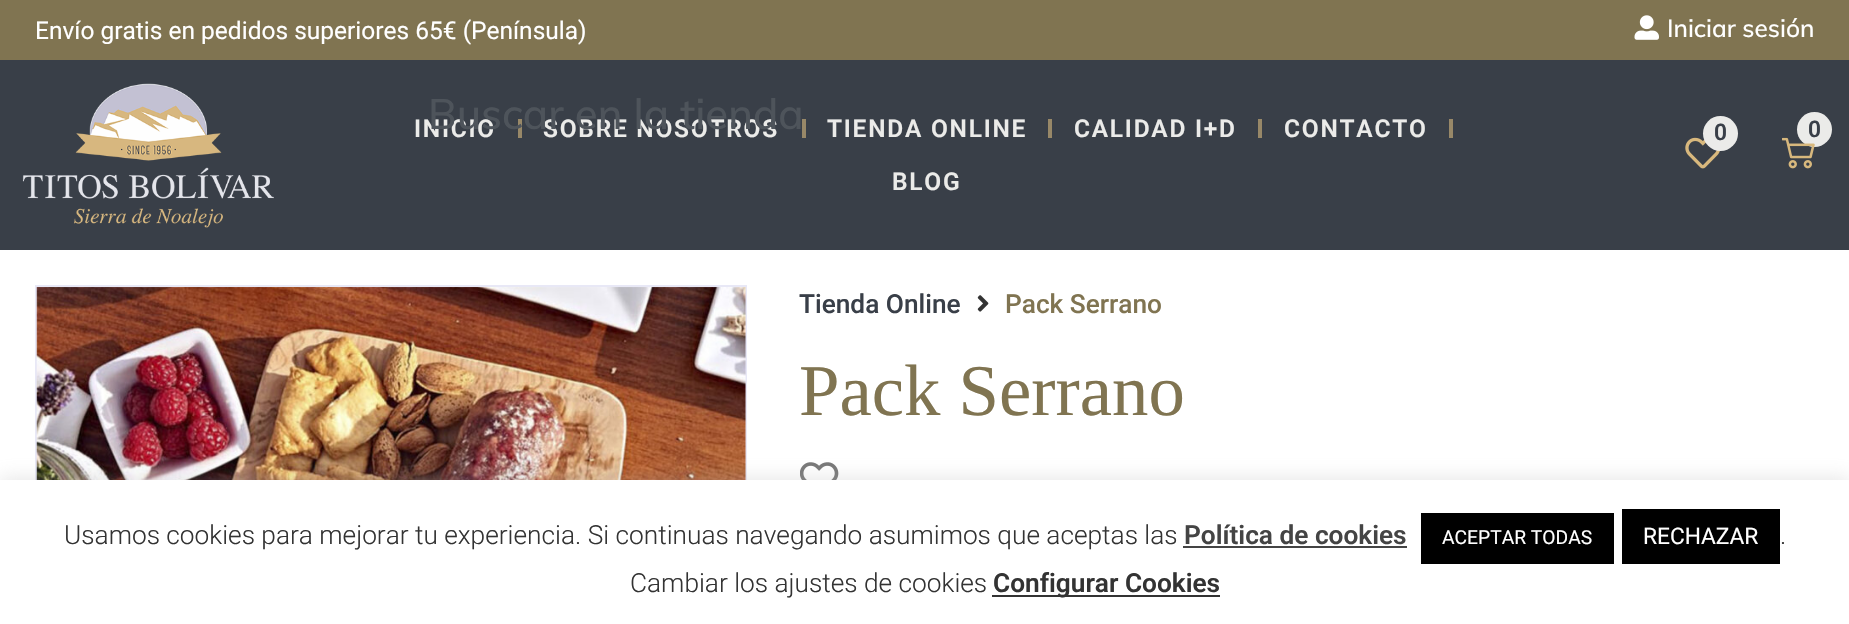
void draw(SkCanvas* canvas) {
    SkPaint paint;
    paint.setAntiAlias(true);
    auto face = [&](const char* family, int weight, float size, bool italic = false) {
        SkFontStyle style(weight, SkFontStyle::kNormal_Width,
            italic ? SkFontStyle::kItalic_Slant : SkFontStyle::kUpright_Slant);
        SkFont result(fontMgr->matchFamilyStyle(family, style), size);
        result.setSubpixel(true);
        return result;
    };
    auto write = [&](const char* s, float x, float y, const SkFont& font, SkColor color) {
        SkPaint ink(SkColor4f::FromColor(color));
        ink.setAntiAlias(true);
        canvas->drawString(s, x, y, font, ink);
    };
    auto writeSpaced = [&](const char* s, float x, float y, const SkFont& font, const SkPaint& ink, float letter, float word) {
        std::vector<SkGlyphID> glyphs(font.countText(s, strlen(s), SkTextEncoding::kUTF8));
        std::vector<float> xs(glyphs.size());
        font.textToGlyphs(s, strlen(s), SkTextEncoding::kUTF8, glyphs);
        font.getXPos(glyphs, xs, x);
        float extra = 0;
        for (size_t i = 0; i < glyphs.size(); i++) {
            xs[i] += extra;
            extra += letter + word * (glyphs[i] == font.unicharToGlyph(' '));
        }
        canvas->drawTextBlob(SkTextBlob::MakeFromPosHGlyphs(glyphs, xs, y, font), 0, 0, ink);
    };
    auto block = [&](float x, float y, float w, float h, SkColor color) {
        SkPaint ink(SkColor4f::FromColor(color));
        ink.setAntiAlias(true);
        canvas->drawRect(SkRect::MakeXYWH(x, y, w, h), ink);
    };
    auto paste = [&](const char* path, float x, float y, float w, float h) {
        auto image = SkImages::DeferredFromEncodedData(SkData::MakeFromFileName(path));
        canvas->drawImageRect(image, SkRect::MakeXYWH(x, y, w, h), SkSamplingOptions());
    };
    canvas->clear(SK_ColorWHITE);
    block(0, 0, 1849, 60, SkColorSetRGB(128, 116, 81));
    auto kFont1 = face("Roboto", 400, 24.5f);
    write("Envío gratis en pedidos superiores 65€ (Península)", 35, 39, kFont1, SK_ColorWHITE);
    paste("pic1.png", 1634, 15, 25, 25);
    auto kFont2 = face("Muli", 500, 24.5f);
    write("Iniciar sesión", 1667, 37, kFont2, SK_ColorWHITE);
    block(0, 60, 1849, 190, SkColorSetRGB(57, 63, 72));
    paste("pic2.png", 22, 83, 252, 145);
    auto kFont3 = face("Roboto", 600, 24.5f);
    paint.setColor(SkColorSetRGB(235, 235, 233));
    writeSpaced("INICIO", 414, 137, kFont3, paint, 1.75f, 0);
    block(518, 119, 4, 19, SkColorSetRGB(152, 136, 104));
    writeSpaced("SOBRE NOSOTROS", 543, 137, kFont3, paint, 1.75f, 0);
    block(802, 119, 4, 19, SkColorSetRGB(152, 136, 104));
    writeSpaced("TIENDA ONLINE", 827, 137, kFont3, paint, 1.75f, 0);
    block(1048, 119, 4, 19, SkColorSetRGB(152, 136, 104));
    writeSpaced("CALIDAD I+D", 1074, 137, kFont3, paint, 1.75f, 0);
    block(1258, 119, 4, 19, SkColorSetRGB(152, 136, 104));
    writeSpaced("CONTACTO", 1284, 137, kFont3, paint, 1.75f, 0);
    block(1449, 119, 4, 19, SkColorSetRGB(152, 136, 104));
    writeSpaced("BLOG", 892, 190, kFont3, paint, 1.75f, 0);
    paste("pic3.png", 1685, 137, 35, 32);
    canvas->drawCircle(1720.5f, 133.5f, 17.5f, paint);
    auto kFont4 = face("Roboto", 600, 22.75f);
    write("0", 1714, 140, kFont4, SkColorSetRGB(57, 63, 72));
    canvas->drawCircle(1814.5f, 129.5f, 17.5f, paint);
    write("0", 1808, 137, kFont4, SkColorSetRGB(57, 63, 72));
    paste("pic4.png", 1782, 137, 33, 32);
    auto kFont5 = face("Muli", 500, 42);
    write("Buscar en la tienda", 428, 129, kFont5, SkColorSetRGB(78, 84, 91));
    paint.setStyle(SkPaint::kStroke_Style);
    paint.setStrokeWidth(2);
    paint.setColor(SkColorSetRGB(232, 232, 246));
    canvas->drawRect(SkRect::MakeXYWH(36, 286, 710, 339), paint);
    paste("pic5.png", 36, 287, 710, 193);
    auto kFont6 = face("Roboto", 500, 26.25f);
    write("Tienda Online", 799, 313, kFont6, SkColorSetRGB(57, 63, 72));
    paste("pic6.png", 977, 295, 12, 17);
    write("Pack Serrano", 1005, 313, kFont6, SkColorSetRGB(128, 116, 81));
    auto kFont7 = face("Liberation Serif", 400, 72.75f);
    write("Pack Serrano", 799, 415, kFont7, SkColorSetRGB(128, 116, 81));
    paste("pic7.png", 800, 462, 39, 18);
    paint.setStyle(SkPaint::kFill_Style);
    paint.setColor(SkColorSetARGB(77, 172, 171, 171));
    paint.setMaskFilter(SkMaskFilter::MakeBlur(kNormal_SkBlurStyle, 9));
    canvas->drawRect(SkRect::MakeXYWH(0, 478, 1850, 145), paint);
    paint.setMaskFilter(nullptr);
    block(0, 480, 1849, 144, SK_ColorWHITE);
    auto kFont8 = face("Roboto", 300, 26.25f);
    write("Usamos cookies para mejorar tu experiencia. Si continuas navegando asumimos que aceptas las", 64, 544, kFont8, SkColorSetRGB(51, 51, 51));
    auto kFont9 = face("Roboto", 600, 26.25f);
    write("Política de cookies", 1184, 544, kFont9, SkColorSetRGB(68, 68, 68));
    block(1183, 546, 224, 2, SkColorSetRGB(68, 68, 68));
    block(1421, 513, 193, 51, SK_ColorBLACK);
    auto kFont10 = face("Roboto", 400, 19.25f);
    write("ACEPTAR TODAS", 1442, 544, kFont10, SK_ColorWHITE);
    block(1622, 509, 158, 55, SK_ColorBLACK);
    auto kFont11 = face("Roboto", 400, 22.75f);
    write("RECHAZAR", 1643, 544, kFont11, SK_ColorWHITE);
    write(".", 1780, 544, kFont8, SkColorSetRGB(51, 51, 51));
    write("Cambiar los ajustes de cookies", 630, 592, kFont8, SkColorSetRGB(51, 51, 51));
    block(992, 595, 228, 2, SkColorSetRGB(51, 51, 51));
    write("Configurar Cookies", 993, 592, kFont9, SkColorSetRGB(51, 51, 51));
}
